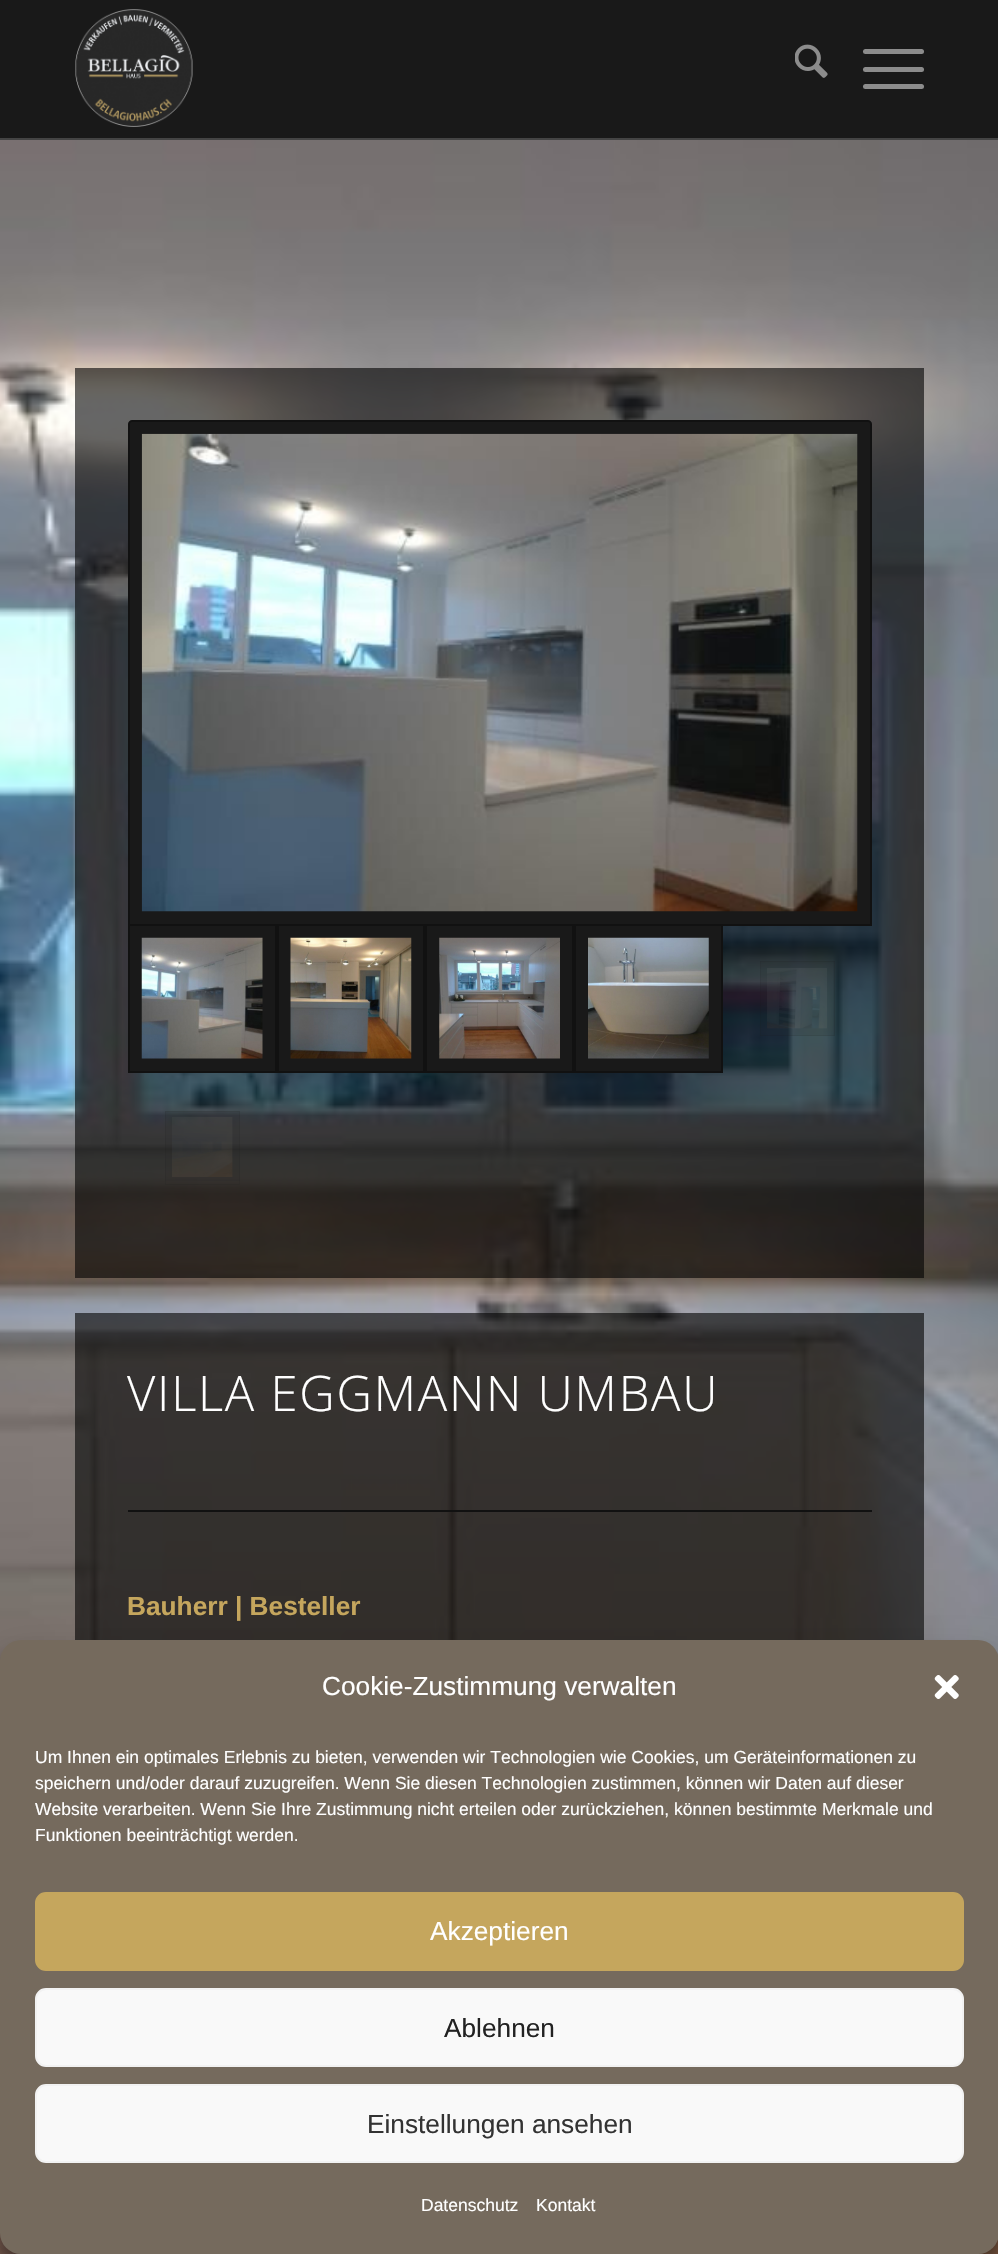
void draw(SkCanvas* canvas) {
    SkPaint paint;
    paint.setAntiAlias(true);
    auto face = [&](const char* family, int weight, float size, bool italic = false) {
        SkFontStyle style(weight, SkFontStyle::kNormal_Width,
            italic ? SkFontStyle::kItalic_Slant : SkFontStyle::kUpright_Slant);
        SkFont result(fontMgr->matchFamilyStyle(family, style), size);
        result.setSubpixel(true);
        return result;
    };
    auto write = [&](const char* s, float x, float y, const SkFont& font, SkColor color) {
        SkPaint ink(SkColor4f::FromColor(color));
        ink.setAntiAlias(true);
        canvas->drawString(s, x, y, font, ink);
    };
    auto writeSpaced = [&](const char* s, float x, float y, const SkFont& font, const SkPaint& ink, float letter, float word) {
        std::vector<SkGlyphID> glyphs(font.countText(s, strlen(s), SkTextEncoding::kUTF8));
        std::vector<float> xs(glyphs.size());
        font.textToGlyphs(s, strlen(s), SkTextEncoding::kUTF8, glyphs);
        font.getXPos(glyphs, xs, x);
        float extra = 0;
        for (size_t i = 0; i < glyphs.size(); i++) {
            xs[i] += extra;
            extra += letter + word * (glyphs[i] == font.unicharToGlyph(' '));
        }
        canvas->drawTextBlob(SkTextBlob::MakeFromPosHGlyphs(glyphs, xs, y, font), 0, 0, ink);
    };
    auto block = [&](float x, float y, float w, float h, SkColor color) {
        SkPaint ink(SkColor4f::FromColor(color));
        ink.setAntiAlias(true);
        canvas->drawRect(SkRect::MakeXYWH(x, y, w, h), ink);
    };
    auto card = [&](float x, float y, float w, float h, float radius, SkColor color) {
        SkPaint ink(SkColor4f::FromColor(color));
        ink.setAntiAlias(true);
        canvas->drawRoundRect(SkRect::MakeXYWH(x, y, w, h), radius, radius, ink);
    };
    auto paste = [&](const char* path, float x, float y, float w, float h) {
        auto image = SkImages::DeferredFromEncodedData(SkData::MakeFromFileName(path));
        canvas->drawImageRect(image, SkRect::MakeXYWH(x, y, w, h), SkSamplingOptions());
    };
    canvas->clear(SK_ColorWHITE);
    block(0, 0, 998, 138, SkColorSetRGB(25, 25, 25));
    block(0, 138, 998, 2, SkColorSetRGB(68, 68, 68));
    paste("pic1.png", 75, 9, 118, 118);
    paste("pic2.png", 795, 44, 33, 34);
    card(863, 67, 61, 5, 2.5f, SkColorSetRGB(140, 140, 140));
    card(863, 49, 61, 5, 2.5f, SkColorSetRGB(140, 140, 140));
    card(863, 84, 61, 5, 2.5f, SkColorSetRGB(140, 140, 140));
    paste("pic3.png", 0, 140, 998, 2114);
    block(75, 368, 849, 910, SkColorSetARGB(153, 0, 0, 0));
    paint.setColor(SkColorSetRGB(25, 25, 25));
    canvas->drawPath(SkPathBuilder().moveTo(132, 421).lineTo(868, 421).cubicTo(869.5f, 421, 871, 422.5f, 871, 424).lineTo(871, 925).lineTo(129, 925).lineTo(129, 424).cubicTo(129, 422.5f, 130.5f, 421, 132, 421).close().detach(), paint);
    paint.setStyle(SkPaint::kStroke_Style);
    paint.setStrokeWidth(2);
    paint.setColor(SkColorSetRGB(17, 17, 17));
    canvas->drawPath(SkPathBuilder().moveTo(132, 421).lineTo(868, 421).cubicTo(869.5f, 421, 871, 422.5f, 871, 424).lineTo(871, 925).lineTo(129, 925).lineTo(129, 424).cubicTo(129, 422.5f, 130.5f, 421, 132, 421).close().detach(), paint);
    paste("pic4.png", 141, 433, 717, 479);
    paint.setStyle(SkPaint::kFill_Style);
    paint.setColor(SkColorSetRGB(25, 25, 25));
    canvas->drawRect(SkRect::MakeXYWH(129, 925, 147, 147), paint);
    paint.setStyle(SkPaint::kStroke_Style);
    paint.setColor(SkColorSetRGB(17, 17, 17));
    canvas->drawRect(SkRect::MakeXYWH(129, 925, 147, 147), paint);
    paste("pic5.png", 141, 937, 122, 122);
    paint.setStyle(SkPaint::kFill_Style);
    paint.setColor(SkColorSetRGB(25, 25, 25));
    canvas->drawRect(SkRect::MakeXYWH(278, 925, 146, 147), paint);
    paint.setStyle(SkPaint::kStroke_Style);
    paint.setColor(SkColorSetRGB(17, 17, 17));
    canvas->drawRect(SkRect::MakeXYWH(278, 925, 146, 147), paint);
    paste("pic6.png", 290, 937, 122, 122);
    paint.setStyle(SkPaint::kFill_Style);
    paint.setColor(SkColorSetRGB(25, 25, 25));
    canvas->drawRect(SkRect::MakeXYWH(426, 925, 147, 147), paint);
    paint.setStyle(SkPaint::kStroke_Style);
    paint.setColor(SkColorSetRGB(17, 17, 17));
    canvas->drawRect(SkRect::MakeXYWH(426, 925, 147, 147), paint);
    paste("pic7.png", 439, 937, 121, 122);
    paint.setStyle(SkPaint::kFill_Style);
    paint.setColor(SkColorSetRGB(25, 25, 25));
    canvas->drawRect(SkRect::MakeXYWH(575, 925, 147, 147), paint);
    paint.setStyle(SkPaint::kStroke_Style);
    paint.setColor(SkColorSetRGB(17, 17, 17));
    canvas->drawRect(SkRect::MakeXYWH(575, 925, 147, 147), paint);
    paste("pic8.png", 588, 937, 121, 122);
    block(760, 961, 75, 75, SkColorSetARGB(26, 25, 25, 25));
    paint.setStrokeWidth(0.9f);
    paint.setColor(SkColorSetARGB(26, 17, 17, 17));
    canvas->drawRect(SkRect::MakeXYWH(760.45f, 961.45f, 74.1f, 74.1f), paint);
    paste("pic9.png", 767, 968, 60, 61);
    block(165, 1111, 75, 70, SkColorSetARGB(26, 25, 25, 25));
    canvas->drawRect(SkRect::MakeXYWH(165.45f, 1111.45f, 74.1f, 73.1f), paint);
    paste("pic10.png", 172, 1117, 61, 60);
    block(75, 1313, 849, 327, SkColorSetARGB(153, 0, 0, 0));
    auto kFont1 = face("Open Sans", 300, 49);
    paint.setStyle(SkPaint::kFill_Style);
    paint.setColor(SK_ColorWHITE);
    writeSpaced("VILLA EGGMANN UMBAU", 127, 1411, kFont1, paint, 1.75f, 0);
    block(128, 1510, 744, 2, SkColorSetRGB(17, 17, 17));
    auto kFont2 = face("Liberation Sans", 700, 26.25f);
    write("Bauherr | Besteller", 127, 1615, kFont2, SkColorSetRGB(197, 166, 93));
    paint.setColor(SkColorSetARGB(59, 0, 0, 0));
    paint.setMaskFilter(SkMaskFilter::MakeBlur(kNormal_SkBlurStyle, 5));
    canvas->drawRoundRect(SkRect::MakeXYWH(0, 1650, 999, 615), 21, 21, paint);
    paint.setMaskFilter(nullptr);
    paint.setColor(SkColorSetARGB(48, 0, 0, 0));
    paint.setMaskFilter(SkMaskFilter::MakeBlur(kNormal_SkBlurStyle, 17.5f));
    canvas->drawRoundRect(SkRect::MakeXYWH(0, 1657, 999, 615), 21, 21, paint);
    paint.setMaskFilter(nullptr);
    card(0, 1640, 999, 614, 21, SkColorSetRGB(117, 106, 93));
    auto kFont3 = face("Liberation Sans", 400, 26.25f);
    write("Cookie-Zustimmung verwalten", 322, 1695, kFont3, SK_ColorWHITE);
    paste("pic11.png", 934, 1675, 25, 24);
    auto kFont4 = face("Liberation Sans", 400, 17.5f);
    write("Um Ihnen ein optimales Erlebnis zu bieten, verwenden wir Technologien wie Cookies, um Geräteinformationen zu", 35, 1763, kFont4, SK_ColorWHITE);
    write("speichern und/oder darauf zuzugreifen. Wenn Sie diesen Technologien zustimmen, können wir Daten auf dieser", 35, 1789, kFont4, SK_ColorWHITE);
    write("Website verarbeiten. Wenn Sie Ihre Zustimmung nicht erteilen oder zurückziehen, können bestimmte Merkmale und", 35, 1815, kFont4, SK_ColorWHITE);
    write("Funktionen beeinträchtigt werden.", 35, 1841, kFont4, SK_ColorWHITE);
    paint.setColor(SkColorSetRGB(197, 166, 93));
    canvas->drawRoundRect(SkRect::MakeXYWH(36, 1893, 927, 77), 10, 10, paint);
    paint.setStyle(SkPaint::kStroke_Style);
    paint.setStrokeWidth(2);
    canvas->drawRoundRect(SkRect::MakeXYWH(36, 1893, 927, 77), 10, 10, paint);
    write("Akzeptieren", 430, 1940, kFont3, SK_ColorWHITE);
    paint.setStyle(SkPaint::kFill_Style);
    paint.setColor(SkColorSetRGB(249, 249, 249));
    canvas->drawRoundRect(SkRect::MakeXYWH(36, 1989, 927, 77), 10, 10, paint);
    paint.setStyle(SkPaint::kStroke_Style);
    paint.setColor(SkColorSetRGB(242, 242, 242));
    canvas->drawRoundRect(SkRect::MakeXYWH(36, 1989, 927, 77), 10, 10, paint);
    write("Ablehnen", 444, 2037, kFont3, SkColorSetRGB(34, 34, 34));
    paint.setStyle(SkPaint::kFill_Style);
    paint.setColor(SkColorSetRGB(249, 249, 249));
    canvas->drawRoundRect(SkRect::MakeXYWH(36, 2085, 927, 77), 10, 10, paint);
    paint.setStyle(SkPaint::kStroke_Style);
    paint.setColor(SkColorSetRGB(242, 242, 242));
    canvas->drawRoundRect(SkRect::MakeXYWH(36, 2085, 927, 77), 10, 10, paint);
    write("Einstellungen ansehen", 367, 2133, kFont3, SkColorSetRGB(51, 51, 51));
    write("Datenschutz", 421, 2211, kFont4, SK_ColorWHITE);
    write("Kontakt", 536, 2211, kFont4, SK_ColorWHITE);
}
